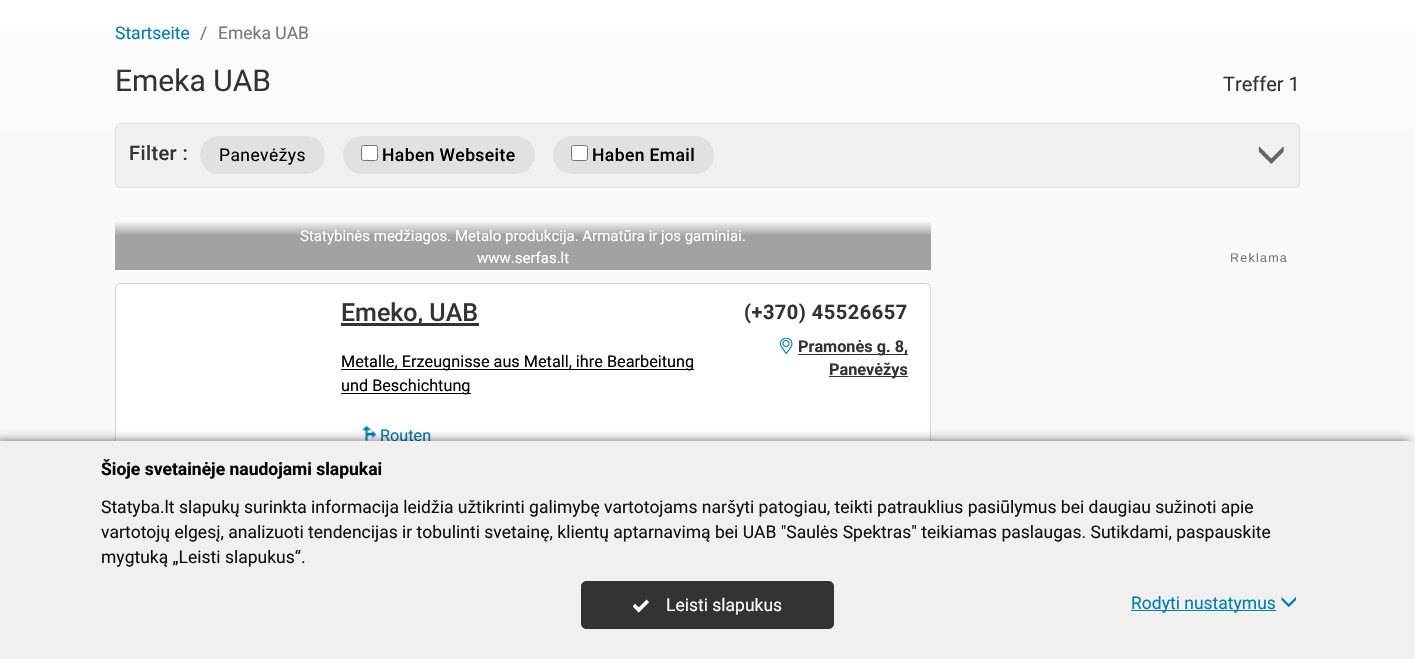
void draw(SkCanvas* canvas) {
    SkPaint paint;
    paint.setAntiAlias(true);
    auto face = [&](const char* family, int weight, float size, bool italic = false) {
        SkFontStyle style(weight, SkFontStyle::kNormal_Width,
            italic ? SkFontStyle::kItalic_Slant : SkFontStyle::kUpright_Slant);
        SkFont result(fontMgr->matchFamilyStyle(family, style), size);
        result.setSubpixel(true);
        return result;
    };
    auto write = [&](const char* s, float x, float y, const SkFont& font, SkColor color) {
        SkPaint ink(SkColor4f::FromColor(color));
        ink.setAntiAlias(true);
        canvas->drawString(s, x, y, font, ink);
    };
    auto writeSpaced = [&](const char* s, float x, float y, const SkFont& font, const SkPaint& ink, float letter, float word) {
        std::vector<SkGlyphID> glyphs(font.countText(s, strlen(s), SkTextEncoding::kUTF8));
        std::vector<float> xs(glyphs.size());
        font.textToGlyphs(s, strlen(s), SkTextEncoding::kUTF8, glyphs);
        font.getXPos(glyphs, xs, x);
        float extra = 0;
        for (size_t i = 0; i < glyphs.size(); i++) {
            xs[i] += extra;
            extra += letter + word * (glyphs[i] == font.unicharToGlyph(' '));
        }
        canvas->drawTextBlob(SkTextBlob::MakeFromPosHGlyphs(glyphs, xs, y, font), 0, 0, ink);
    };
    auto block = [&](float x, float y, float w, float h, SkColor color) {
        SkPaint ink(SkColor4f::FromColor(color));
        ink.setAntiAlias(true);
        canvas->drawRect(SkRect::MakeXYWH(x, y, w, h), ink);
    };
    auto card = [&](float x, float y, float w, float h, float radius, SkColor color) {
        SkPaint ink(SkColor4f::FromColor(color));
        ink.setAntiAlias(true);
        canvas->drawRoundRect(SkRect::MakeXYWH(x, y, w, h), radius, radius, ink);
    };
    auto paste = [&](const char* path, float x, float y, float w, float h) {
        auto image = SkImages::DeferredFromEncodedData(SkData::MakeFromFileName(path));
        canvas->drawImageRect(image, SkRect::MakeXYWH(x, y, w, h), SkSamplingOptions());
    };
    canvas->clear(SK_ColorWHITE);
    {
        const SkColor colors[] = {SkColorSetRGB(249, 249, 249), SkColorSetRGB(249, 249, 249), SK_ColorWHITE};
        const float stops[] = {0, 0.9f, 1};
        const SkPoint ends[] = {{708, 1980}, {708, -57}};
        paint.setShader(SkGradientShader::MakeLinear(ends, colors, stops, 3, SkTileMode::kClamp));
        paint.setAlpha(255);
    }
    canvas->drawRect(SkRect::MakeXYWH(0, 28, 1415, 413), paint);
    auto kFont1 = face("Roboto", 400, 17.5f);
    write("Startseite", 115, 39, kFont1, SkColorSetRGB(0, 124, 174));
    write("/", 200, 39, kFont1, SkColorSetRGB(119, 119, 119));
    write("Emeka UAB", 218, 39, kFont1, SkColorSetRGB(119, 119, 119));
    auto kFont2 = face("Roboto", 400, 30);
    write("Emeka UAB", 115, 91, kFont2, SkColorSetRGB(51, 51, 51));
    auto kFont3 = face("Roboto", 400, 20);
    write("Treffer 1", 1223, 91, kFont3, SkColorSetRGB(51, 51, 51));
    paint.setShader(nullptr);
    paint.setColor(SkColorSetRGB(240, 240, 240));
    canvas->drawRoundRect(SkRect::MakeXYWH(115.5f, 123.5f, 1184, 64), 4.5f, 4.5f, paint);
    paint.setStyle(SkPaint::kStroke_Style);
    paint.setStrokeWidth(1);
    paint.setColor(SkColorSetRGB(225, 225, 225));
    canvas->drawRoundRect(SkRect::MakeXYWH(115.5f, 123.5f, 1184, 64), 4.5f, 4.5f, paint);
    auto kFont4 = face("Roboto", 500, 20);
    paint.setStyle(SkPaint::kFill_Style);
    paint.setColor(SkColorSetRGB(51, 51, 51));
    writeSpaced("Filter :", 129, 160, kFont4, paint, 0.4f, 0);
    card(200, 136, 125, 38, 19, SkColorSetRGB(225, 225, 225));
    paint.setColor(SK_ColorBLACK);
    writeSpaced("Panevėžys", 219, 161, kFont1, paint, 0.4f, 0);
    card(343, 136, 192, 38, 19, SkColorSetRGB(225, 225, 225));
    paint.setColor(SK_ColorWHITE);
    canvas->drawRoundRect(SkRect::MakeXYWH(361.5f, 145.5f, 16, 15), 2, 2, paint);
    paint.setStyle(SkPaint::kStroke_Style);
    paint.setColor(SkColorSetRGB(118, 118, 118));
    canvas->drawRoundRect(SkRect::MakeXYWH(361.5f, 145.5f, 16, 15), 2, 2, paint);
    auto kFont5 = face("Roboto", 500, 17.5f);
    paint.setStyle(SkPaint::kFill_Style);
    paint.setColor(SK_ColorBLACK);
    writeSpaced("Haben Webseite", 382, 161, kFont5, paint, 0.4f, 0);
    card(553, 136, 161, 38, 19, SkColorSetRGB(225, 225, 225));
    paint.setColor(SK_ColorWHITE);
    canvas->drawRoundRect(SkRect::MakeXYWH(571.5f, 145.5f, 16, 15), 2, 2, paint);
    paint.setStyle(SkPaint::kStroke_Style);
    paint.setColor(SkColorSetRGB(118, 118, 118));
    canvas->drawRoundRect(SkRect::MakeXYWH(571.5f, 145.5f, 16, 15), 2, 2, paint);
    paint.setStyle(SkPaint::kFill_Style);
    paint.setColor(SK_ColorBLACK);
    writeSpaced("Haben Email", 592, 161, kFont5, paint, 0.4f, 0);
    paste("pic1.png", 1258, 146, 26, 18);
    {
        const SkColor colors[] = {SkColorSetRGB(249, 249, 249), SkColorSetRGB(162, 162, 162), SkColorSetRGB(162, 162, 162)};
        const float stops[] = {0, 0.3f, 1};
        const SkPoint ends[] = {{523, 221}, {523, 270}};
        paint.setShader(SkGradientShader::MakeLinear(ends, colors, stops, 3, SkTileMode::kClamp));
        paint.setAlpha(255);
    }
    canvas->drawRect(SkRect::MakeXYWH(115, 221, 816, 49), paint);
    auto kFont6 = face("Roboto", 400, 15);
    write("Statybinės medžiagos. Metalo produkcija. Armatūra ir jos gaminiai.", 300, 241, kFont6, SK_ColorWHITE);
    write("www.serfas.lt", 477, 263, kFont6, SK_ColorWHITE);
    paint.setShader(nullptr);
    paint.setColor(SK_ColorWHITE);
    canvas->drawRoundRect(SkRect::MakeXYWH(115.5f, 283.5f, 815, 194), 4.5f, 4.5f, paint);
    paint.setStyle(SkPaint::kStroke_Style);
    paint.setColor(SkColorSetRGB(213, 213, 213));
    canvas->drawRoundRect(SkRect::MakeXYWH(115.5f, 283.5f, 815, 194), 4.5f, 4.5f, paint);
    block(341, 323, 138, 3, SkColorSetRGB(51, 51, 51));
    auto kFont7 = face("Roboto", 500, 25);
    write("Emeko, UAB", 341, 321, kFont7, SkColorSetRGB(51, 51, 51));
    block(341, 369, 353, 1, SK_ColorBLACK);
    auto kFont8 = face("Roboto", 400, 16.25f);
    write("Metalle, Erzeugnisse aus Metall, ihre Bearbeitung", 341, 367, kFont8, SK_ColorBLACK);
    block(341, 393, 130, 1, SK_ColorBLACK);
    write("und Beschichtung", 341, 391, kFont8, SK_ColorBLACK);
    paste("pic2.png", 362, 425, 15, 16);
    write("Routen", 380, 441, kFont8, SkColorSetRGB(0, 124, 174));
    auto kFont9 = face("Roboto", 700, 20);
    paint.setStyle(SkPaint::kFill_Style);
    paint.setColor(SkColorSetRGB(51, 51, 51));
    writeSpaced("(+370) 45526657", 744, 319, kFont9, paint, 0.5f, 0);
    paste("pic3.png", 780, 338, 13, 17);
    block(798, 354, 110, 1, SkColorSetRGB(51, 51, 51));
    auto kFont10 = face("Roboto", 700, 16.25f);
    write("Pramonės g. 8,", 798, 352, kFont10, SkColorSetRGB(51, 51, 51));
    block(829, 376, 79, 1, SkColorSetRGB(51, 51, 51));
    write("Panevėžys", 829, 375, kFont10, SkColorSetRGB(51, 51, 51));
    auto kFont11 = face("Liberation Sans", 400, 12.5f);
    paint.setColor(SkColorSetRGB(119, 119, 119));
    writeSpaced("Reklama", 1230, 262, kFont11, paint, 1.25f, 0);
    paint.setColor(SkColorSetARGB(153, 0, 0, 0));
    paint.setMaskFilter(SkMaskFilter::MakeBlur(kNormal_SkBlurStyle, 5));
    canvas->drawRect(SkRect::MakeXYWH(-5, 441, 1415, 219), paint);
    paint.setMaskFilter(nullptr);
    block(0, 441, 1415, 218, SkColorSetRGB(240, 240, 240));
    auto kFont12 = face("Roboto", 700, 17.5f);
    write("Šioje svetainėje naudojami slapukai", 101, 475, kFont12, SK_ColorBLACK);
    write("Statyba.lt slapukų surinkta informacija leidžia užtikrinti galimybę vartotojams naršyti patogiau, teikti patrauklius pasiūlymus bei daugiau sužinoti apie", 101, 513, kFont1, SkColorSetRGB(17, 17, 17));
    write("vartotojų elgesį, analizuoti tendencijas ir tobulinti svetainę, klientų aptarnavimą bei UAB \"Saulės Spektras\" teikiamas paslaugas. Sutikdami, paspauskite", 101, 538, kFont1, SkColorSetRGB(17, 17, 17));
    write("mygtuką „Leisti slapukus“.", 101, 563, kFont1, SkColorSetRGB(17, 17, 17));
    paint.setColor(SkColorSetRGB(51, 51, 51));
    canvas->drawRoundRect(SkRect::MakeXYWH(581.5f, 581.5f, 252, 47), 4.5f, 4.5f, paint);
    paint.setStyle(SkPaint::kStroke_Style);
    canvas->drawRoundRect(SkRect::MakeXYWH(581.5f, 581.5f, 252, 47), 4.5f, 4.5f, paint);
    paste("pic4.png", 633, 599, 16, 14);
    write("Leisti slapukus", 666, 611, kFont1, SK_ColorWHITE);
    block(1131, 610, 145, 1, SkColorSetRGB(0, 124, 174));
    write("Rodyti nustatymus", 1131, 609, kFont1, SkColorSetRGB(0, 124, 174));
    paste("pic5.png", 1281, 597, 15, 10);
}
